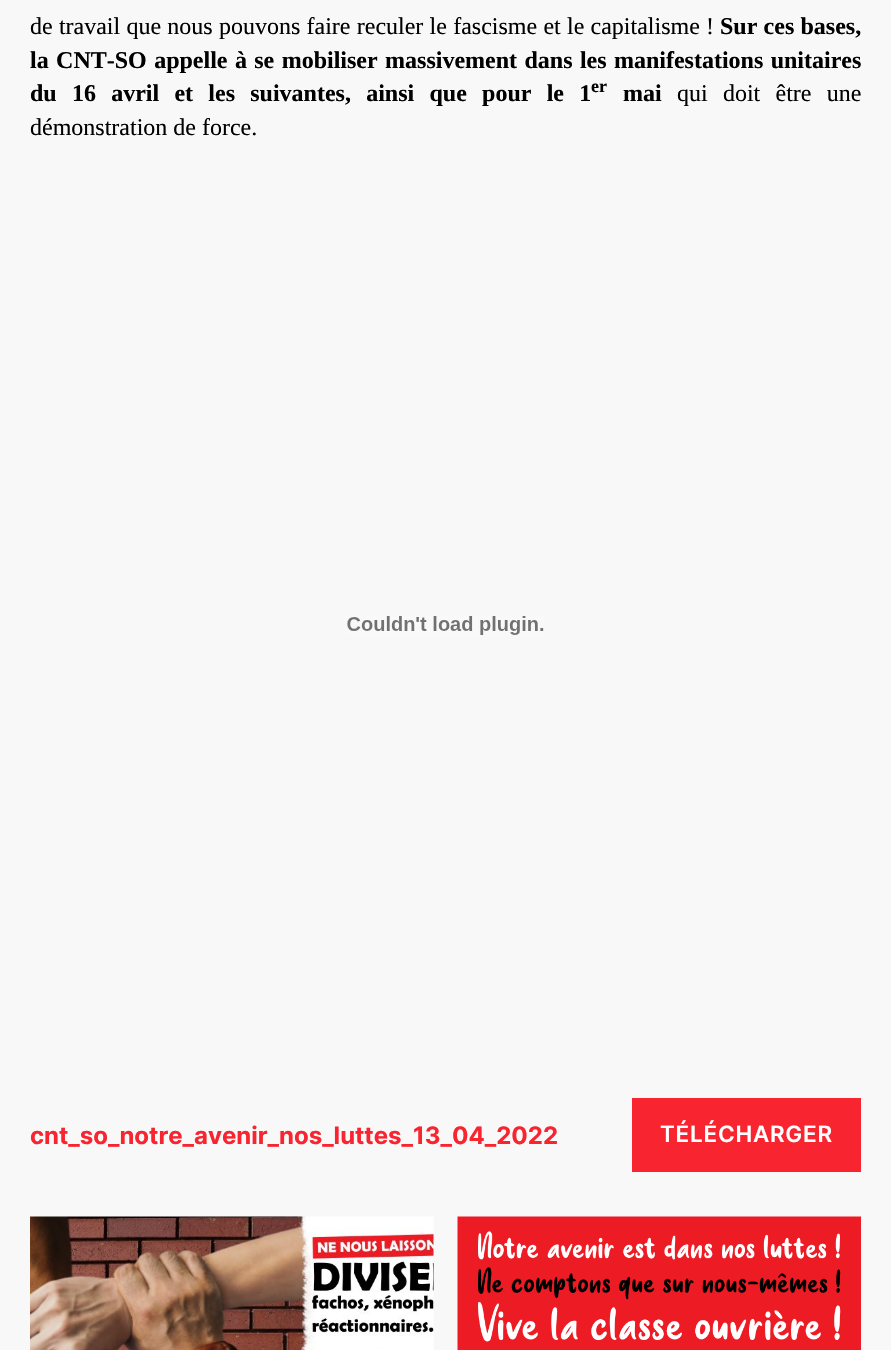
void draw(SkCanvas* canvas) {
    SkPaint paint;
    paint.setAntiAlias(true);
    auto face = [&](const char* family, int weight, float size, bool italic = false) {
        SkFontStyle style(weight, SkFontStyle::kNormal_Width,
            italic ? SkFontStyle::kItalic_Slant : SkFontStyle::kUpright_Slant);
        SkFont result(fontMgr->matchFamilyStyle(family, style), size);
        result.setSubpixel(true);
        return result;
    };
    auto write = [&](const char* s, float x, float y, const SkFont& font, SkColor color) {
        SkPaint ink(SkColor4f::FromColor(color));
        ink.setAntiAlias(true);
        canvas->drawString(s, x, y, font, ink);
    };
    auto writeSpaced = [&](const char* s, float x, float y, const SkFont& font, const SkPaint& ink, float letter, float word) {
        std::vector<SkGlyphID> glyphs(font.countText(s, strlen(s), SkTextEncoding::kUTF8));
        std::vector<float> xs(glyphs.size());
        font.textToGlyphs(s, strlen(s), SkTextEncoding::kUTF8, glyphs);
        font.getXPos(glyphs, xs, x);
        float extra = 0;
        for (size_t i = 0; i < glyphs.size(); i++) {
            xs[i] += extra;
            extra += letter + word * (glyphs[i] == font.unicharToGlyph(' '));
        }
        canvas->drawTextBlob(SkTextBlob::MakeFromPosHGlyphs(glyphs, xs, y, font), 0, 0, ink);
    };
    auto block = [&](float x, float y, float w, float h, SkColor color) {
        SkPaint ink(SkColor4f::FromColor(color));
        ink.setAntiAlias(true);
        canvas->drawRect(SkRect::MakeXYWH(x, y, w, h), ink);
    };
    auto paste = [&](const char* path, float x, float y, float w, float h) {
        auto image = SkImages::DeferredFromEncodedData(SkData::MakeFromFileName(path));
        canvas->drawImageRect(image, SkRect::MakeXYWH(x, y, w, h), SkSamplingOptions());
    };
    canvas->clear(SkColorSetRGB(248, 248, 248));
    auto kFont1 = face("Liberation Serif", 400, 24);
    paint.setColor(SK_ColorBLACK);
    writeSpaced("de travail que nous pouvons faire reculer le fascisme et le capitalisme !", 30, 34, kFont1, paint, 0, 0.25f);
    auto kFont2 = face("Liberation Serif", 700, 24);
    writeSpaced("Sur ces bases,", 720, 34, kFont2, paint, 0, 0.25f);
    writeSpaced("la CNT-SO appelle à se mobiliser massivement dans les manifestations unitaires", 30, 68, kFont2, paint, 0, 1.4f);
    writeSpaced("du 16 avril et les suivantes, ainsi que pour le 1", 30, 101, kFont2, paint, 0, 9.25f);
    auto kFont3 = face("Liberation Serif", 700, 18);
    write("er", 591, 92, kFont3, SK_ColorBLACK);
    write("mai", 623, 101, kFont2, SK_ColorBLACK);
    writeSpaced("qui doit être une", 677, 101, kFont1, paint, 0, 9.25f);
    write("démonstration de force.", 30, 135, kFont1, SK_ColorBLACK);
    paste("pic1.png", 347, 616, 197, 19);
    auto kFont4 = face("Inter", 700, 24);
    write("cnt_so_notre_avenir_nos_luttes_13_04_2022", 30, 1144, kFont4, SkColorSetRGB(248, 36, 47));
    block(632, 1098, 229, 74, SkColorSetRGB(248, 36, 47));
    auto kFont5 = face("Inter", 600, 22.5f);
    paint.setColor(SK_ColorWHITE);
    writeSpaced("TÉLÉCHARGER", 660, 1142, kFont5, paint, 0.75f, 0);
    paste("pic2.png", 30, 1216, 404, 134);
    paste("pic3.png", 457, 1216, 404, 134);
}
